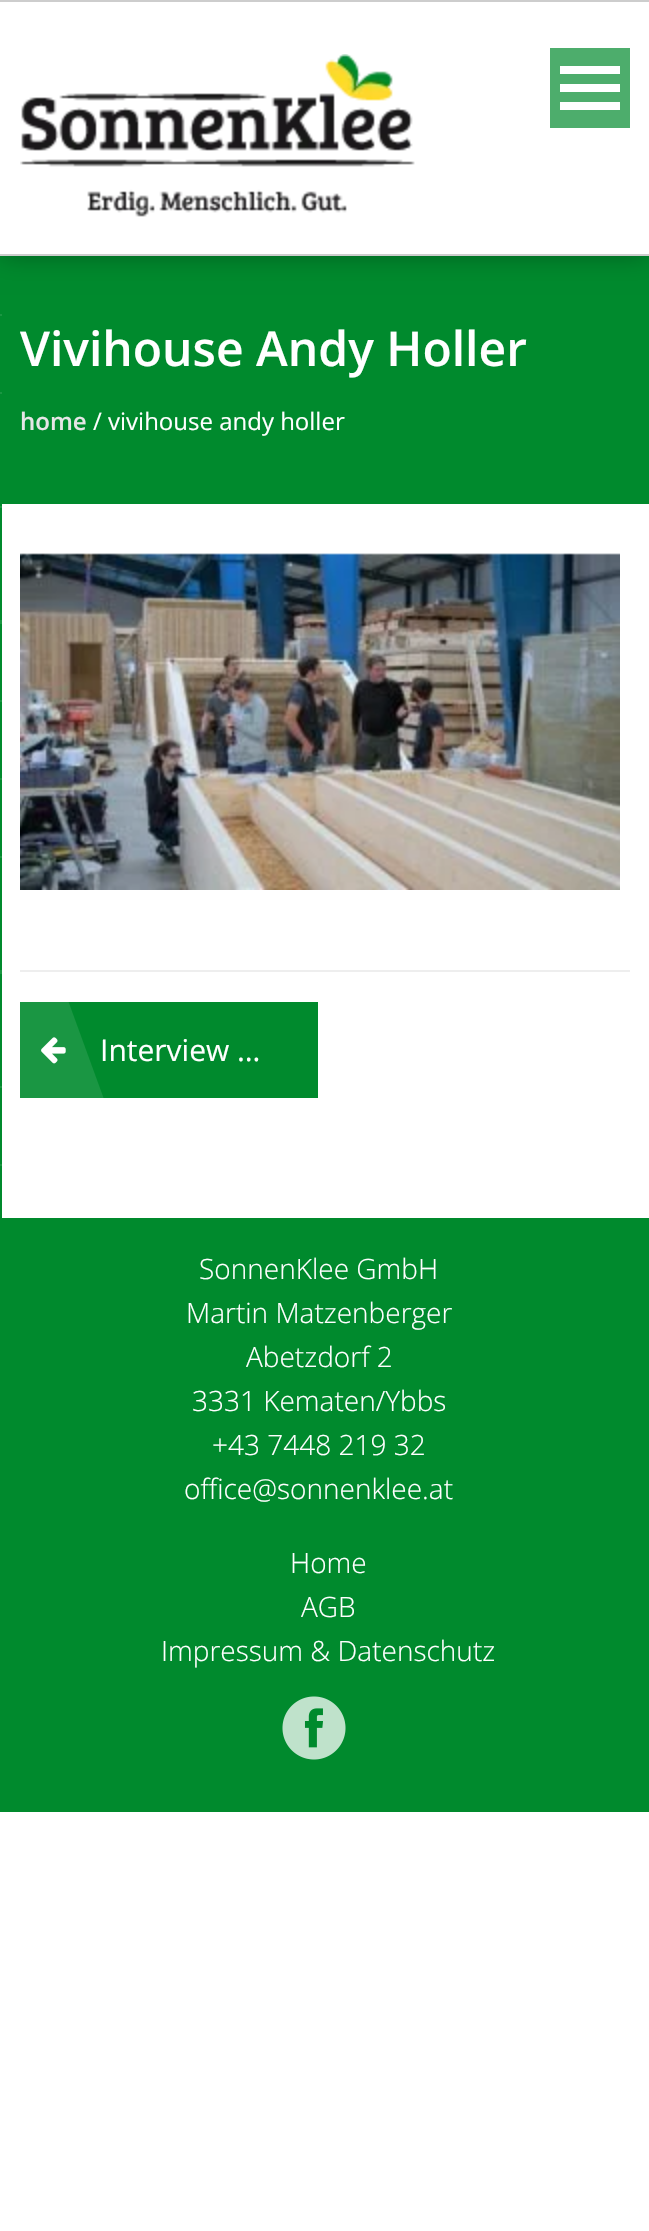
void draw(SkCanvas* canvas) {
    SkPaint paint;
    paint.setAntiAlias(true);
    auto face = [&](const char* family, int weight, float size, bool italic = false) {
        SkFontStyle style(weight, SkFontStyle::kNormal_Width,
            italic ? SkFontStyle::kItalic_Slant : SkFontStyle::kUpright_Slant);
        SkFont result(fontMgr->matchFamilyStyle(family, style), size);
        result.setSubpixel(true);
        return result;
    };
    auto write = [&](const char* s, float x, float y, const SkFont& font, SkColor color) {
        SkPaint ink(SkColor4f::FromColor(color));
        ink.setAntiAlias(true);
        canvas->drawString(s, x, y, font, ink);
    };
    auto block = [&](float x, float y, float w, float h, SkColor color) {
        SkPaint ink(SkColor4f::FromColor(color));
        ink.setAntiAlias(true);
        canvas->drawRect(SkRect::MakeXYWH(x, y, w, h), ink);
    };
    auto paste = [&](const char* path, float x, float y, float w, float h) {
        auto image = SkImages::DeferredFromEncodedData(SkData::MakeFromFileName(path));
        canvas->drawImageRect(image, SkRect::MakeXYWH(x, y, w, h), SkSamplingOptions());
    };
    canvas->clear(SK_ColorWHITE);
    block(0, 256, 2, 962, SkColorSetRGB(0, 138, 45));
    block(2, 256, 647, 248, SkColorSetRGB(0, 138, 45));
    paint.setColor(SkColorSetARGB(77, 0, 0, 0));
    paint.setMaskFilter(SkMaskFilter::MakeBlur(kNormal_SkBlurStyle, 13));
    canvas->drawRect(SkRect::MakeXYWH(0, 0, 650, 256), paint);
    paint.setMaskFilter(nullptr);
    block(0, 2, 649, 252, SK_ColorWHITE);
    block(0, 0, 649, 2, SkColorSetRGB(205, 205, 205));
    block(0, 254, 649, 2, SkColorSetRGB(205, 205, 205));
    paste("pic1.png", 20, 54, 395, 163);
    block(550, 48, 80, 80, SkColorSetRGB(77, 173, 108));
    block(560, 66, 60, 8, SK_ColorWHITE);
    block(560, 84, 60, 8, SK_ColorWHITE);
    block(560, 102, 60, 8, SK_ColorWHITE);
    block(0, 314, 2, 2, SkColorSetRGB(26, 150, 66));
    block(0, 392, 2, 2, SkColorSetRGB(26, 150, 66));
    block(0, 506, 2, 2, SkColorSetRGB(26, 150, 66));
    block(0, 620, 2, 4, SkColorSetRGB(26, 150, 66));
    block(0, 700, 2, 2, SkColorSetRGB(26, 150, 66));
    block(0, 778, 2, 2, SkColorSetRGB(26, 150, 66));
    block(0, 856, 2, 2, SkColorSetRGB(26, 150, 66));
    block(0, 970, 2, 4, SkColorSetRGB(26, 150, 66));
    block(0, 1086, 2, 2, SkColorSetRGB(26, 150, 66));
    block(0, 1164, 2, 2, SkColorSetRGB(26, 150, 66));
    auto kFont1 = face("Open Sans", 600, 48);
    write("Vivihouse Andy Holler", 20, 366, kFont1, SK_ColorWHITE);
    auto kFont2 = face("Open Sans", 600, 24);
    write("home", 20, 430, kFont2, SkColorSetRGB(230, 230, 230));
    auto kFont3 = face("Open Sans", 400, 24);
    write("/ vivihouse andy holler", 93, 430, kFont3, SK_ColorWHITE);
    block(20, 970, 610, 2, SkColorSetRGB(238, 238, 238));
    paste("pic2.png", 20, 553, 600, 337);
    block(20, 1002, 298, 96, SkColorSetRGB(0, 138, 45));
    paste("pic3.png", 41, 1037, 25, 27);
    canvas->save();
    canvas->clipRect(SkRect::MakeXYWH(20, 1002, 298, 96));
    paint.setColor(SkColorSetARGB(26, 255, 255, 255));
    canvas->drawPath(SkPathBuilder().moveTo(50, 951).lineTo(105, 1102).lineTo(-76, 1167).lineTo(-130, 1017).close().detach(), paint);
    canvas->restore();
    auto kFont4 = face("Open Sans", 400, 30);
    write("Interview …", 100, 1061, kFont4, SK_ColorWHITE);
    block(0, 1218, 649, 594, SkColorSetRGB(0, 138, 45));
    auto kFont5 = face("Open Sans", 300, 28);
    write("SonnenKlee GmbH", 199, 1279, kFont5, SK_ColorWHITE);
    write("Martin Matzenberger", 186, 1323, kFont5, SK_ColorWHITE);
    write("Abetzdorf 2", 246, 1367, kFont5, SK_ColorWHITE);
    write("3331 Kematen/Ybbs", 192, 1411, kFont5, SK_ColorWHITE);
    write("+43 7448 219 32", 212, 1455, kFont5, SK_ColorWHITE);
    write("office@sonnenklee.at", 184, 1499, kFont5, SK_ColorWHITE);
    write("Home", 290, 1573, kFont5, SK_ColorWHITE);
    write("AGB", 301, 1617, kFont5, SK_ColorWHITE);
    write("Impressum & Datenschutz", 161, 1661, kFont5, SK_ColorWHITE);
    paste("pic4.png", 282, 1696, 64, 64);
}
